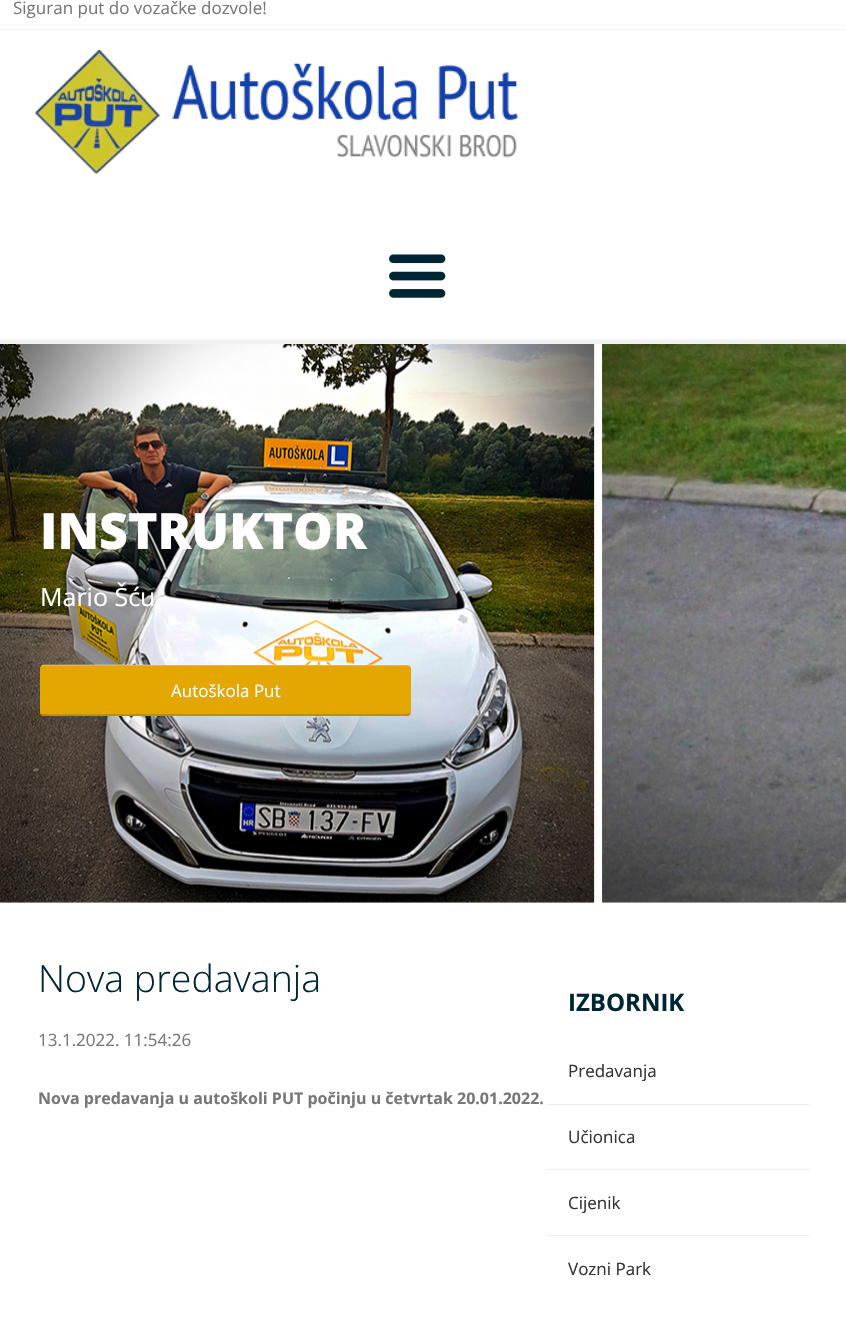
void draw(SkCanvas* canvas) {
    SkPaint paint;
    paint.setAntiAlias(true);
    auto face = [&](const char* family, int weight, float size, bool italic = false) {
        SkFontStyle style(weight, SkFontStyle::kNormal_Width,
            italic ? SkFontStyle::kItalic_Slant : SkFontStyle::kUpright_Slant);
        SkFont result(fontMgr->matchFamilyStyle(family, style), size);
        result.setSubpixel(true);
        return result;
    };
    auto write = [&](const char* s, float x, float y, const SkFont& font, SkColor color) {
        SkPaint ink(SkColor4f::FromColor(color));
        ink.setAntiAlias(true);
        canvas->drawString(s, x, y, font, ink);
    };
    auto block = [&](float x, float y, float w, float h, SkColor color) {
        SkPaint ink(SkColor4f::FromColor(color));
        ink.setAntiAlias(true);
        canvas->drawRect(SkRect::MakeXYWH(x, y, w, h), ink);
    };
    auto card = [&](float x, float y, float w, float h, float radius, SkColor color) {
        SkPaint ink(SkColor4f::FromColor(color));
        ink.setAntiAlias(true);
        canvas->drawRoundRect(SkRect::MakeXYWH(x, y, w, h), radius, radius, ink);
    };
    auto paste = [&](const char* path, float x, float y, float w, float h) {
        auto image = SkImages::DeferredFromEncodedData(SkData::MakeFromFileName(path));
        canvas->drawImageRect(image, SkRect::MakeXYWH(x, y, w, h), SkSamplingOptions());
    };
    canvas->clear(SK_ColorWHITE);
    auto kFont1 = face("Open Sans", 400, 17);
    write("Siguran put do vozačke dozvole!", 13, 14, kFont1, SkColorSetRGB(119, 119, 119));
    block(0, 29, 846, 1, SkColorSetRGB(242, 242, 242));
    block(0, 339, 846, 5, SkColorSetRGB(242, 242, 242));
    paste("pic1.png", 34, 50, 484, 124);
    paste("pic2.png", 389, 254, 57, 44);
    paste("pic3.png", 0, 344, 846, 559);
    auto kFont2 = face("Open Sans", 800, 50);
    write("INSTRUKTOR", 40, 549, kFont2, SK_ColorWHITE);
    auto kFont3 = face("Open Sans", 400, 25);
    write("Mario Šću", 40, 606, kFont3, SK_ColorWHITE);
    card(40, 665, 371, 51, 4, SkColorSetRGB(228, 166, 0));
    paint.setStyle(SkPaint::kStroke_Style);
    paint.setStrokeWidth(1.2f);
    paint.setColor(SkColorSetARGB(102, 255, 255, 255));
    canvas->drawPath(SkPathBuilder().moveTo(41.5f, 666).lineTo(44, 665).lineTo(407.5f, 665).lineTo(409.5f, 666).detach(), paint);
    paint.setColor(SkColorSetARGB(77, 0, 0, 0));
    canvas->drawPath(SkPathBuilder().moveTo(409.5f, 714).lineTo(407.5f, 715).lineTo(44, 715).lineTo(41.5f, 714).detach(), paint);
    write("Autoškola Put", 171, 697, kFont1, SK_ColorWHITE);
    auto kFont4 = face("Open Sans", 300, 37.5f);
    write("Nova predavanja", 38, 992, kFont4, SkColorSetRGB(0, 38, 51));
    write("13.1.2022. 11:54:26", 38, 1046, kFont1, SkColorSetRGB(119, 119, 119));
    auto kFont5 = face("Open Sans", 700, 16);
    write("Nova predavanja u autoškoli PUT počinju u četvrtak 20.01.2022.", 38, 1104, kFont5, SkColorSetRGB(119, 119, 119));
    auto kFont6 = face("Open Sans", 700, 24);
    write("IZBORNIK", 568, 1011, kFont6, SkColorSetRGB(0, 38, 51));
    paint.setStyle(SkPaint::kFill_Style);
    paint.setColor(SkColorSetRGB(235, 235, 235));
    canvas->drawPath(SkPathBuilder().moveTo(809, 1105).lineTo(544, 1105).lineTo(550, 1104).lineTo(809, 1104).close().detach(), paint);
    write("Predavanja", 568, 1077, kFont1, SkColorSetRGB(51, 51, 51));
    canvas->drawPath(SkPathBuilder().moveTo(809, 1170).lineTo(544, 1170).lineTo(550, 1169).lineTo(809, 1169).close().detach(), paint);
    write("Učionica", 568, 1143, kFont1, SkColorSetRGB(51, 51, 51));
    canvas->drawPath(SkPathBuilder().moveTo(809, 1236).lineTo(544, 1236).lineTo(550, 1235).lineTo(809, 1235).close().detach(), paint);
    write("Cijenik", 568, 1209, kFont1, SkColorSetRGB(51, 51, 51));
    write("Vozni Park", 568, 1275, kFont1, SkColorSetRGB(51, 51, 51));
}
